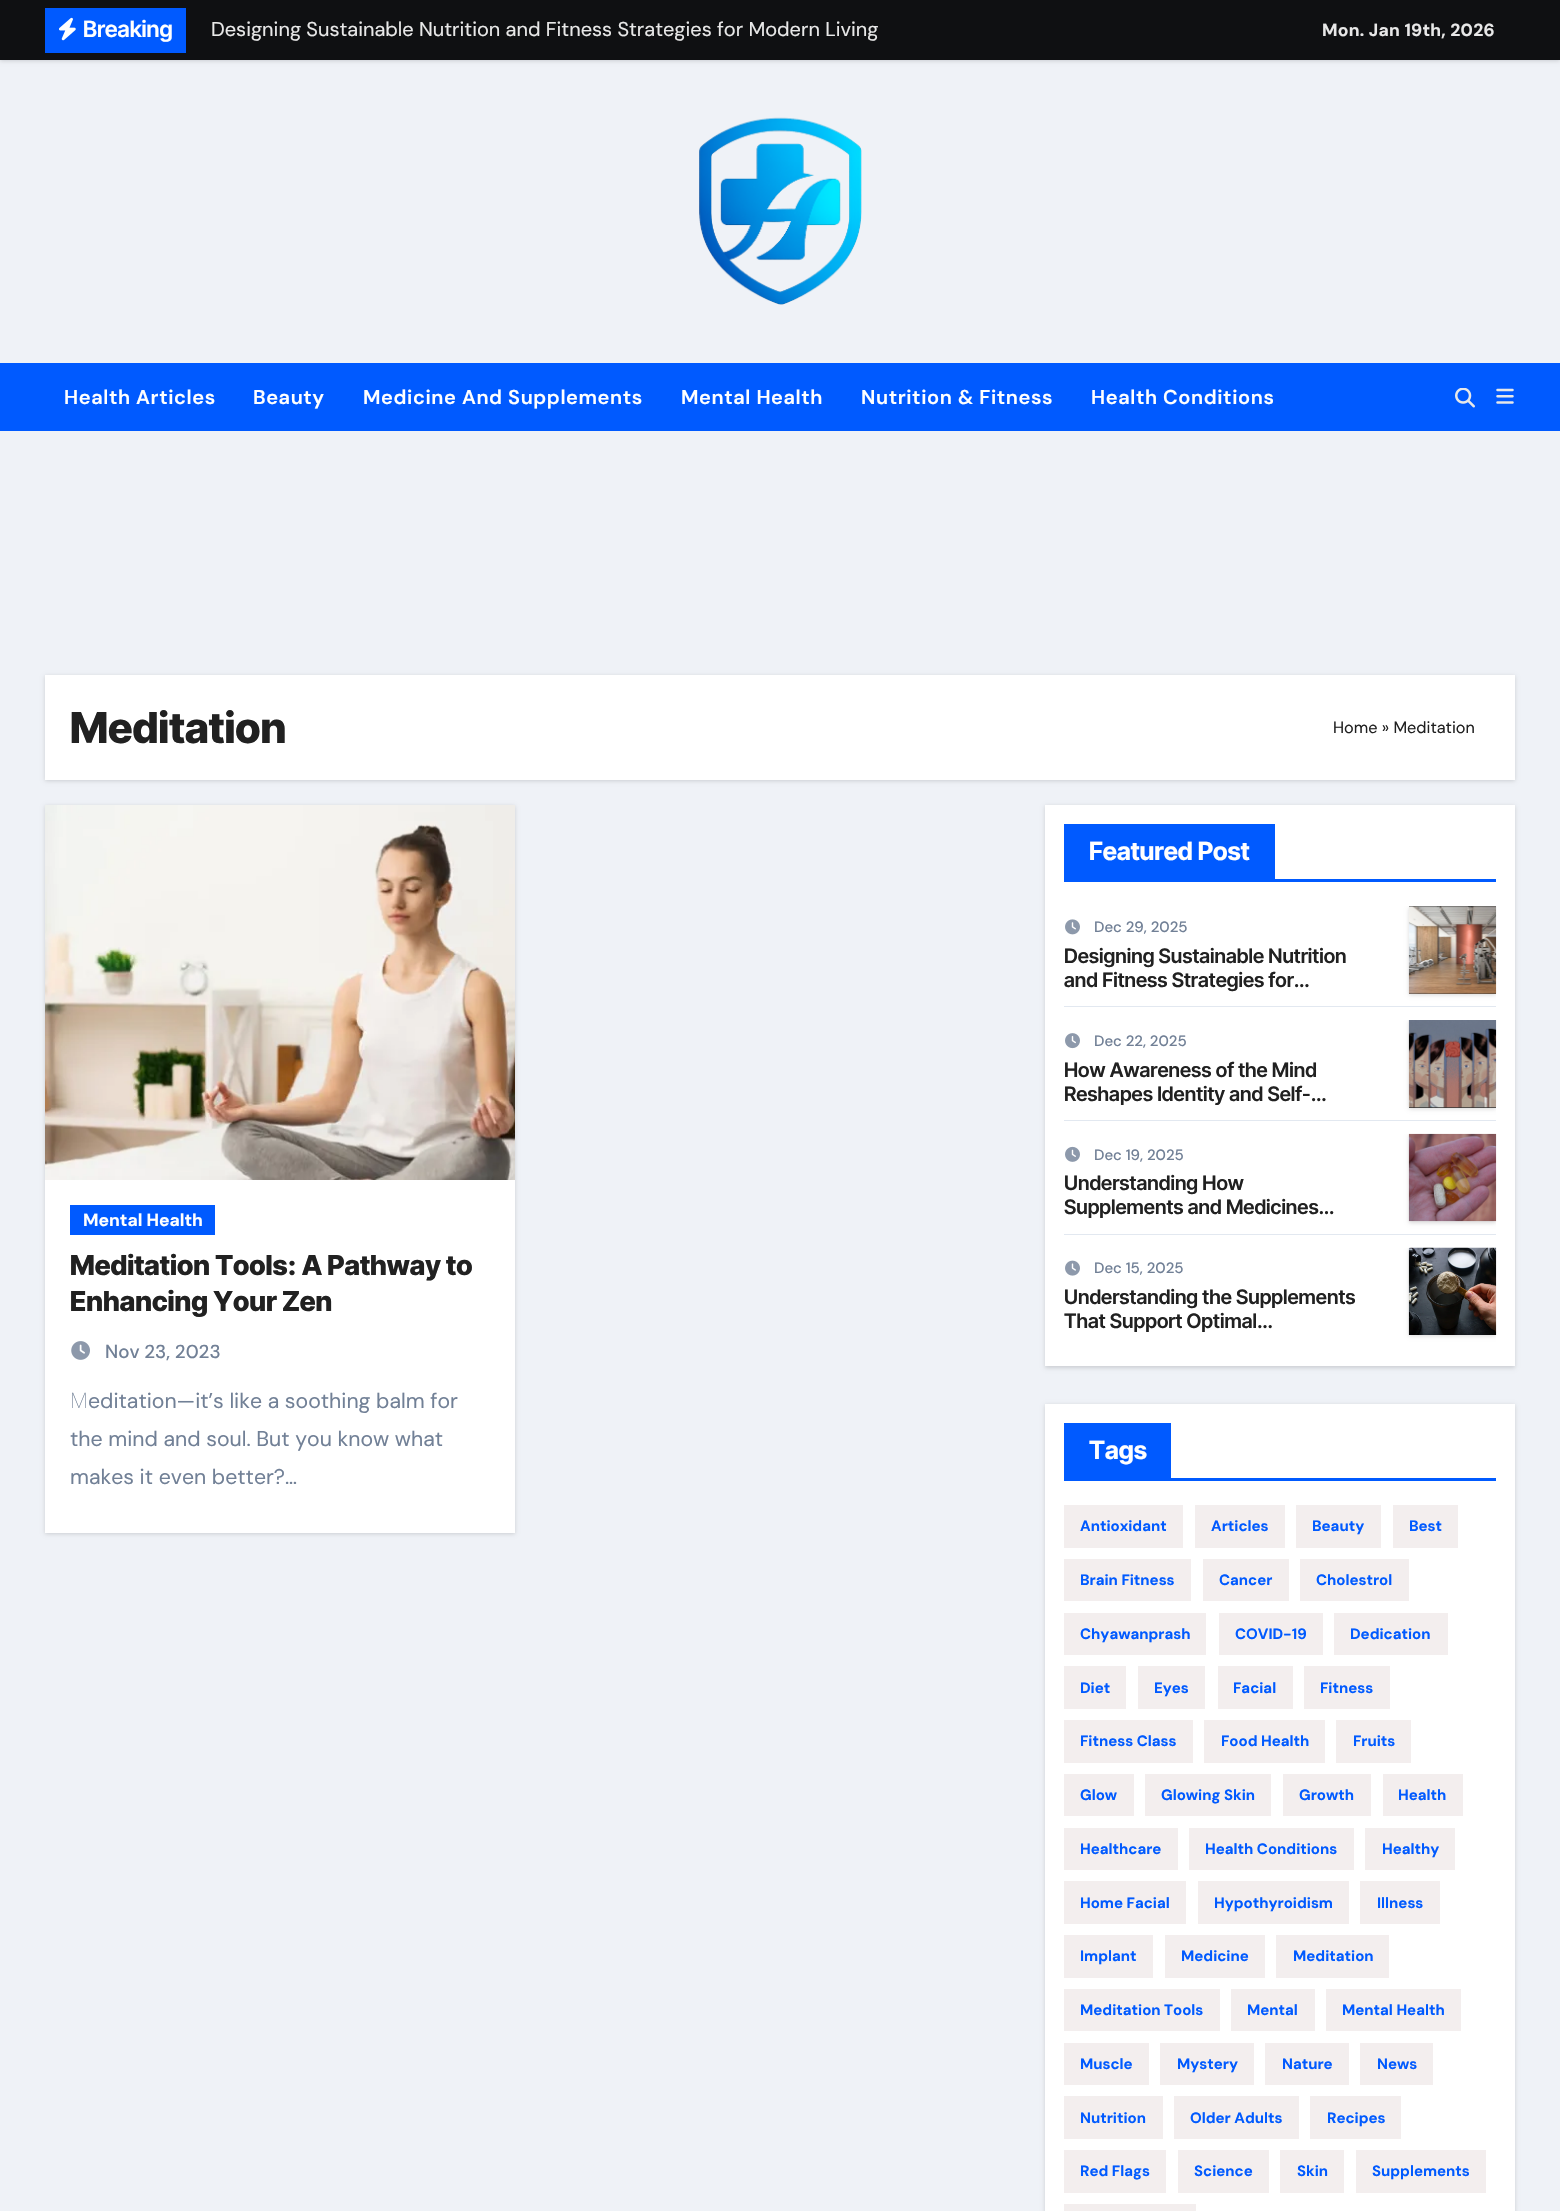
void draw(SkCanvas* canvas) {
    SkPaint paint;
    paint.setAntiAlias(true);
    auto face = [&](const char* family, int weight, float size, bool italic = false) {
        SkFontStyle style(weight, SkFontStyle::kNormal_Width,
            italic ? SkFontStyle::kItalic_Slant : SkFontStyle::kUpright_Slant);
        SkFont result(fontMgr->matchFamilyStyle(family, style), size);
        result.setSubpixel(true);
        return result;
    };
    auto write = [&](const char* s, float x, float y, const SkFont& font, SkColor color) {
        SkPaint ink(SkColor4f::FromColor(color));
        ink.setAntiAlias(true);
        canvas->drawString(s, x, y, font, ink);
    };
    auto writeSpaced = [&](const char* s, float x, float y, const SkFont& font, const SkPaint& ink, float letter, float word) {
        std::vector<SkGlyphID> glyphs(font.countText(s, strlen(s), SkTextEncoding::kUTF8));
        std::vector<float> xs(glyphs.size());
        font.textToGlyphs(s, strlen(s), SkTextEncoding::kUTF8, glyphs);
        font.getXPos(glyphs, xs, x);
        float extra = 0;
        for (size_t i = 0; i < glyphs.size(); i++) {
            xs[i] += extra;
            extra += letter + word * (glyphs[i] == font.unicharToGlyph(' '));
        }
        canvas->drawTextBlob(SkTextBlob::MakeFromPosHGlyphs(glyphs, xs, y, font), 0, 0, ink);
    };
    auto block = [&](float x, float y, float w, float h, SkColor color) {
        SkPaint ink(SkColor4f::FromColor(color));
        ink.setAntiAlias(true);
        canvas->drawRect(SkRect::MakeXYWH(x, y, w, h), ink);
    };
    auto paste = [&](const char* path, float x, float y, float w, float h) {
        auto image = SkImages::DeferredFromEncodedData(SkData::MakeFromFileName(path));
        canvas->drawImageRect(image, SkRect::MakeXYWH(x, y, w, h), SkSamplingOptions());
    };
    canvas->clear(SkColorSetRGB(239, 242, 247));
    paint.setColor(SkColorSetARGB(38, 0, 0, 0));
    paint.setMaskFilter(SkMaskFilter::MakeBlur(kNormal_SkBlurStyle, 2));
    canvas->drawRect(SkRect::MakeXYWH(0, 1, 1560, 60), paint);
    paint.setMaskFilter(nullptr);
    block(0, 0, 1560, 60, SkColorSetRGB(15, 16, 18));
    block(45, 8, 141, 45, SkColorSetRGB(0, 90, 255));
    paste("pic1.png", 59, 17, 17, 24);
    auto kFont1 = face("Inter Tight", 600, 22.5f);
    write("Breaking", 83, 37, kFont1, SK_ColorWHITE);
    auto kFont2 = face("DM Sans", 400, 20);
    write("Designing Sustainable Nutrition and Fitness Strategies for Modern Living", 211, 36, kFont2, SkColorSetRGB(232, 232, 232));
    auto kFont3 = face("DM Sans", 700, 17.5f);
    paint.setColor(SkColorSetRGB(232, 232, 232));
    writeSpaced("Mon. Jan 19th, 2026", 1322, 36, kFont3, paint, 0.25f, 0);
    paste("pic2.png", 699, 117, 163, 188);
    block(0, 363, 1560, 68, SkColorSetRGB(0, 90, 255));
    auto kFont4 = face("DM Sans", 600, 20);
    paint.setColor(SK_ColorWHITE);
    writeSpaced("Health Articles", 64, 404, kFont4, paint, 0.6f, 0);
    writeSpaced("Beauty", 253, 404, kFont4, paint, 0.6f, 0);
    writeSpaced("Medicine And Supplements", 363, 404, kFont4, paint, 0.6f, 0);
    writeSpaced("Mental Health", 681, 404, kFont4, paint, 0.6f, 0);
    writeSpaced("Nutrition & Fitness", 861, 404, kFont4, paint, 0.6f, 0);
    writeSpaced("Health Conditions", 1091, 404, kFont4, paint, 0.6f, 0);
    paste("pic3.png", 1455, 388, 20, 20);
    paste("pic4.png", 1496, 388, 18, 16);
    paint.setColor(SkColorSetARGB(38, 0, 0, 0));
    paint.setMaskFilter(SkMaskFilter::MakeBlur(kNormal_SkBlurStyle, 2));
    canvas->drawRect(SkRect::MakeXYWH(45, 676, 1470, 105), paint);
    paint.setMaskFilter(nullptr);
    block(45, 675, 1470, 105, SK_ColorWHITE);
    auto kFont5 = face("Inter Tight", 800, 42.5f);
    write("Meditation", 70, 743, kFont5, SkColorSetRGB(33, 33, 33));
    auto kFont6 = face("DM Sans", 400, 16.25f);
    write("Home » Meditation", 1333, 733, kFont6, SkColorSetRGB(33, 33, 33));
    paint.setMaskFilter(SkMaskFilter::MakeBlur(kNormal_SkBlurStyle, 2));
    canvas->drawRect(SkRect::MakeXYWH(45, 806, 470, 728), paint);
    paint.setMaskFilter(nullptr);
    block(45, 1180, 470, 353, SK_ColorWHITE);
    paste("pic5.png", 45, 805, 470, 375);
    block(70, 1205, 145, 30, SkColorSetRGB(0, 90, 255));
    write("Mental Health", 83, 1226, kFont3, SK_ColorWHITE);
    auto kFont7 = face("Inter Tight", 800, 27.5f);
    write("Meditation Tools: A Pathway to", 70, 1275, kFont7, SkColorSetRGB(33, 33, 33));
    write("Enhancing Your Zen", 70, 1311, kFont7, SkColorSetRGB(33, 33, 33));
    paste("pic6.png", 71, 1341, 19, 19);
    auto kFont8 = face("DM Sans", 500, 18.75f);
    write("Nov 23, 2023", 105, 1358, kFont8, SkColorSetRGB(113, 128, 150));
    auto kFont9 = face("Noto Sans", 100, 21.25f);
    write("M", 70, 1408, kFont9, SkColorSetRGB(113, 128, 150));
    auto kFont10 = face("DM Sans", 400, 21.25f);
    write("editation—it’s like a soothing balm for", 88, 1408, kFont10, SkColorSetRGB(113, 128, 150));
    write("the mind and soul. But you know what", 70, 1446, kFont10, SkColorSetRGB(113, 128, 150));
    write("makes it even better?…", 70, 1484, kFont10, SkColorSetRGB(113, 128, 150));
    paint.setMaskFilter(SkMaskFilter::MakeBlur(kNormal_SkBlurStyle, 2));
    canvas->drawRect(SkRect::MakeXYWH(1045, 806, 470, 562), paint);
    paint.setMaskFilter(nullptr);
    block(1045, 805, 470, 561, SK_ColorWHITE);
    block(1064, 879, 432, 3, SkColorSetRGB(0, 90, 255));
    block(1064, 824, 211, 55, SkColorSetRGB(0, 90, 255));
    auto kFont11 = face("Inter Tight", 700, 25);
    write("Featured Post", 1089, 860, kFont11, SK_ColorWHITE);
    block(1064, 1006, 432, 1, SkColorSetRGB(226, 232, 240));
    paste("pic7.png", 1065, 919, 15, 16);
    auto kFont12 = face("DM Sans", 500, 15);
    write("Dec 29, 2025", 1094, 932, kFont12, SkColorSetRGB(113, 128, 150));
    auto kFont13 = face("Inter Tight", 600, 20);
    write("Designing Sustainable Nutrition", 1064, 963, kFont13, SkColorSetRGB(33, 33, 33));
    write("and Fitness Strategies for…", 1064, 987, kFont13, SkColorSetRGB(33, 33, 33));
    canvas->save();
    canvas->clipRect(SkRect::MakeXYWH(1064, 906, 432, 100));
    paint.setMaskFilter(SkMaskFilter::MakeBlur(kNormal_SkBlurStyle, 2));
    canvas->drawRect(SkRect::MakeXYWH(1409, 908, 87, 87), paint);
    paint.setMaskFilter(nullptr);
    canvas->restore();
    block(1409, 906, 87, 88, SkColorSetRGB(51, 51, 51));
    paste("pic8.png", 1408, 906, 89, 88);
    block(1064, 1120, 432, 1, SkColorSetRGB(226, 232, 240));
    paste("pic9.png", 1065, 1033, 15, 16);
    write("Dec 22, 2025", 1094, 1046, kFont12, SkColorSetRGB(113, 128, 150));
    write("How Awareness of the Mind", 1064, 1077, kFont13, SkColorSetRGB(33, 33, 33));
    write("Reshapes Identity and Self-…", 1064, 1101, kFont13, SkColorSetRGB(33, 33, 33));
    canvas->save();
    canvas->clipRect(SkRect::MakeXYWH(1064, 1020, 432, 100));
    paint.setMaskFilter(SkMaskFilter::MakeBlur(kNormal_SkBlurStyle, 2));
    canvas->drawRect(SkRect::MakeXYWH(1409, 1021, 87, 88), paint);
    paint.setMaskFilter(nullptr);
    canvas->restore();
    block(1409, 1107, 87, 1, SkColorSetRGB(51, 51, 51));
    paste("pic10.png", 1408, 1020, 89, 88);
    block(1064, 1234, 432, 1, SkColorSetRGB(226, 232, 240));
    paste("pic11.png", 1065, 1146, 15, 16);
    write("Dec 19, 2025", 1094, 1160, kFont12, SkColorSetRGB(113, 128, 150));
    write("Understanding How", 1064, 1190, kFont13, SkColorSetRGB(33, 33, 33));
    write("Supplements and Medicines…", 1064, 1214, kFont13, SkColorSetRGB(33, 33, 33));
    canvas->save();
    canvas->clipRect(SkRect::MakeXYWH(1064, 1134, 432, 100));
    paint.setMaskFilter(SkMaskFilter::MakeBlur(kNormal_SkBlurStyle, 2));
    canvas->drawRect(SkRect::MakeXYWH(1409, 1135, 87, 88), paint);
    paint.setMaskFilter(nullptr);
    canvas->restore();
    paste("pic12.png", 1408, 1133, 89, 89);
    paste("pic13.png", 1065, 1260, 15, 16);
    write("Dec 15, 2025", 1094, 1273, kFont12, SkColorSetRGB(113, 128, 150));
    write("Understanding the Supplements", 1064, 1304, kFont13, SkColorSetRGB(33, 33, 33));
    write("That Support Optimal…", 1064, 1328, kFont13, SkColorSetRGB(33, 33, 33));
    canvas->save();
    canvas->clipRect(SkRect::MakeXYWH(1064, 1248, 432, 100));
    paint.setMaskFilter(SkMaskFilter::MakeBlur(kNormal_SkBlurStyle, 2));
    canvas->drawRect(SkRect::MakeXYWH(1409, 1249, 87, 87), paint);
    paint.setMaskFilter(nullptr);
    canvas->restore();
    paste("pic14.png", 1408, 1247, 89, 88);
    paint.setMaskFilter(SkMaskFilter::MakeBlur(kNormal_SkBlurStyle, 2));
    canvas->drawRect(SkRect::MakeXYWH(1045, 1405, 470, 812), paint);
    paint.setMaskFilter(nullptr);
    block(1045, 1404, 470, 807, SK_ColorWHITE);
    block(1064, 1478, 432, 3, SkColorSetRGB(0, 90, 255));
    block(1064, 1423, 107, 55, SkColorSetRGB(0, 90, 255));
    write("Tags", 1089, 1459, kFont11, SK_ColorWHITE);
    block(1064, 1505, 119, 43, SkColorSetRGB(243, 238, 238));
    auto kFont14 = face("DM Sans", 700, 15);
    write("Antioxidant", 1080, 1531, kFont14, SkColorSetRGB(0, 90, 255));
    block(1195, 1505, 90, 43, SkColorSetRGB(243, 238, 238));
    write("Articles", 1211, 1531, kFont14, SkColorSetRGB(0, 90, 255));
    block(1296, 1505, 85, 43, SkColorSetRGB(243, 238, 238));
    write("Beauty", 1312, 1531, kFont14, SkColorSetRGB(0, 90, 255));
    block(1393, 1505, 65, 43, SkColorSetRGB(243, 238, 238));
    write("Best", 1409, 1531, kFont14, SkColorSetRGB(0, 90, 255));
    block(1064, 1559, 127, 42, SkColorSetRGB(243, 238, 238));
    write("Brain Fitness", 1080, 1585, kFont14, SkColorSetRGB(0, 90, 255));
    block(1203, 1559, 86, 42, SkColorSetRGB(243, 238, 238));
    write("Cancer", 1219, 1585, kFont14, SkColorSetRGB(0, 90, 255));
    block(1300, 1559, 109, 42, SkColorSetRGB(243, 238, 238));
    write("Cholestrol", 1316, 1585, kFont14, SkColorSetRGB(0, 90, 255));
    block(1064, 1613, 142, 42, SkColorSetRGB(243, 238, 238));
    write("Chyawanprash", 1080, 1639, kFont14, SkColorSetRGB(0, 90, 255));
    block(1219, 1613, 104, 42, SkColorSetRGB(243, 238, 238));
    write("COVID-19", 1235, 1639, kFont14, SkColorSetRGB(0, 90, 255));
    block(1334, 1613, 114, 42, SkColorSetRGB(243, 238, 238));
    write("Dedication", 1350, 1639, kFont14, SkColorSetRGB(0, 90, 255));
    block(1064, 1666, 62, 43, SkColorSetRGB(243, 238, 238));
    write("Diet", 1080, 1693, kFont14, SkColorSetRGB(0, 90, 255));
    block(1138, 1666, 67, 43, SkColorSetRGB(243, 238, 238));
    write("Eyes", 1154, 1693, kFont14, SkColorSetRGB(0, 90, 255));
    block(1218, 1666, 75, 43, SkColorSetRGB(243, 238, 238));
    write("Facial", 1233, 1693, kFont14, SkColorSetRGB(0, 90, 255));
    block(1304, 1666, 86, 43, SkColorSetRGB(243, 238, 238));
    write("Fitness", 1320, 1693, kFont14, SkColorSetRGB(0, 90, 255));
    block(1064, 1720, 129, 43, SkColorSetRGB(243, 238, 238));
    write("Fitness Class", 1080, 1746, kFont14, SkColorSetRGB(0, 90, 255));
    block(1204, 1720, 121, 43, SkColorSetRGB(243, 238, 238));
    write("Food Health", 1221, 1746, kFont14, SkColorSetRGB(0, 90, 255));
    block(1336, 1720, 75, 43, SkColorSetRGB(243, 238, 238));
    write("Fruits", 1353, 1746, kFont14, SkColorSetRGB(0, 90, 255));
    block(1064, 1774, 70, 42, SkColorSetRGB(243, 238, 238));
    write("Glow", 1080, 1800, kFont14, SkColorSetRGB(0, 90, 255));
    block(1145, 1774, 126, 42, SkColorSetRGB(243, 238, 238));
    write("Glowing Skin", 1161, 1800, kFont14, SkColorSetRGB(0, 90, 255));
    block(1283, 1774, 88, 42, SkColorSetRGB(243, 238, 238));
    write("Growth", 1299, 1800, kFont14, SkColorSetRGB(0, 90, 255));
    block(1383, 1774, 80, 42, SkColorSetRGB(243, 238, 238));
    write("Health", 1398, 1800, kFont14, SkColorSetRGB(0, 90, 255));
    block(1064, 1828, 114, 42, SkColorSetRGB(243, 238, 238));
    write("Healthcare", 1080, 1854, kFont14, SkColorSetRGB(0, 90, 255));
    block(1189, 1828, 165, 42, SkColorSetRGB(243, 238, 238));
    write("Health Conditions", 1205, 1854, kFont14, SkColorSetRGB(0, 90, 255));
    block(1365, 1828, 90, 42, SkColorSetRGB(243, 238, 238));
    write("Healthy", 1382, 1854, kFont14, SkColorSetRGB(0, 90, 255));
    block(1064, 1881, 122, 43, SkColorSetRGB(243, 238, 238));
    write("Home Facial", 1080, 1908, kFont14, SkColorSetRGB(0, 90, 255));
    block(1198, 1881, 151, 43, SkColorSetRGB(243, 238, 238));
    write("Hypothyroidism", 1214, 1908, kFont14, SkColorSetRGB(0, 90, 255));
    block(1360, 1881, 80, 43, SkColorSetRGB(243, 238, 238));
    write("Illness", 1377, 1908, kFont14, SkColorSetRGB(0, 90, 255));
    block(1064, 1935, 89, 43, SkColorSetRGB(243, 238, 238));
    write("Implant", 1080, 1961, kFont14, SkColorSetRGB(0, 90, 255));
    block(1165, 1935, 100, 43, SkColorSetRGB(243, 238, 238));
    write("Medicine", 1181, 1961, kFont14, SkColorSetRGB(0, 90, 255));
    block(1276, 1935, 113, 43, SkColorSetRGB(243, 238, 238));
    write("Meditation", 1293, 1961, kFont14, SkColorSetRGB(0, 90, 255));
    block(1064, 1989, 156, 42, SkColorSetRGB(243, 238, 238));
    write("Meditation Tools", 1080, 2015, kFont14, SkColorSetRGB(0, 90, 255));
    block(1231, 1989, 84, 42, SkColorSetRGB(243, 238, 238));
    write("Mental", 1247, 2015, kFont14, SkColorSetRGB(0, 90, 255));
    block(1326, 1989, 135, 42, SkColorSetRGB(243, 238, 238));
    write("Mental Health", 1342, 2015, kFont14, SkColorSetRGB(0, 90, 255));
    block(1064, 2043, 85, 42, SkColorSetRGB(243, 238, 238));
    write("Muscle", 1080, 2069, kFont14, SkColorSetRGB(0, 90, 255));
    block(1160, 2043, 94, 42, SkColorSetRGB(243, 238, 238));
    write("Mystery", 1177, 2069, kFont14, SkColorSetRGB(0, 90, 255));
    block(1265, 2043, 84, 42, SkColorSetRGB(243, 238, 238));
    write("Nature", 1282, 2069, kFont14, SkColorSetRGB(0, 90, 255));
    block(1360, 2043, 73, 42, SkColorSetRGB(243, 238, 238));
    write("News", 1377, 2069, kFont14, SkColorSetRGB(0, 90, 255));
    block(1064, 2096, 99, 43, SkColorSetRGB(243, 238, 238));
    write("Nutrition", 1080, 2123, kFont14, SkColorSetRGB(0, 90, 255));
    block(1174, 2096, 125, 43, SkColorSetRGB(243, 238, 238));
    write("Older Adults", 1190, 2123, kFont14, SkColorSetRGB(0, 90, 255));
    block(1310, 2096, 91, 43, SkColorSetRGB(243, 238, 238));
    write("Recipes", 1327, 2123, kFont14, SkColorSetRGB(0, 90, 255));
    block(1064, 2150, 102, 43, SkColorSetRGB(243, 238, 238));
    write("Red Flags", 1080, 2176, kFont14, SkColorSetRGB(0, 90, 255));
    block(1178, 2150, 91, 43, SkColorSetRGB(243, 238, 238));
    write("Science", 1194, 2176, kFont14, SkColorSetRGB(0, 90, 255));
    block(1280, 2150, 64, 43, SkColorSetRGB(243, 238, 238));
    write("Skin", 1297, 2176, kFont14, SkColorSetRGB(0, 90, 255));
    block(1356, 2150, 130, 43, SkColorSetRGB(243, 238, 238));
    write("Supplements", 1372, 2176, kFont14, SkColorSetRGB(0, 90, 255));
    block(1064, 2204, 132, 7, SkColorSetRGB(243, 238, 238));
}
